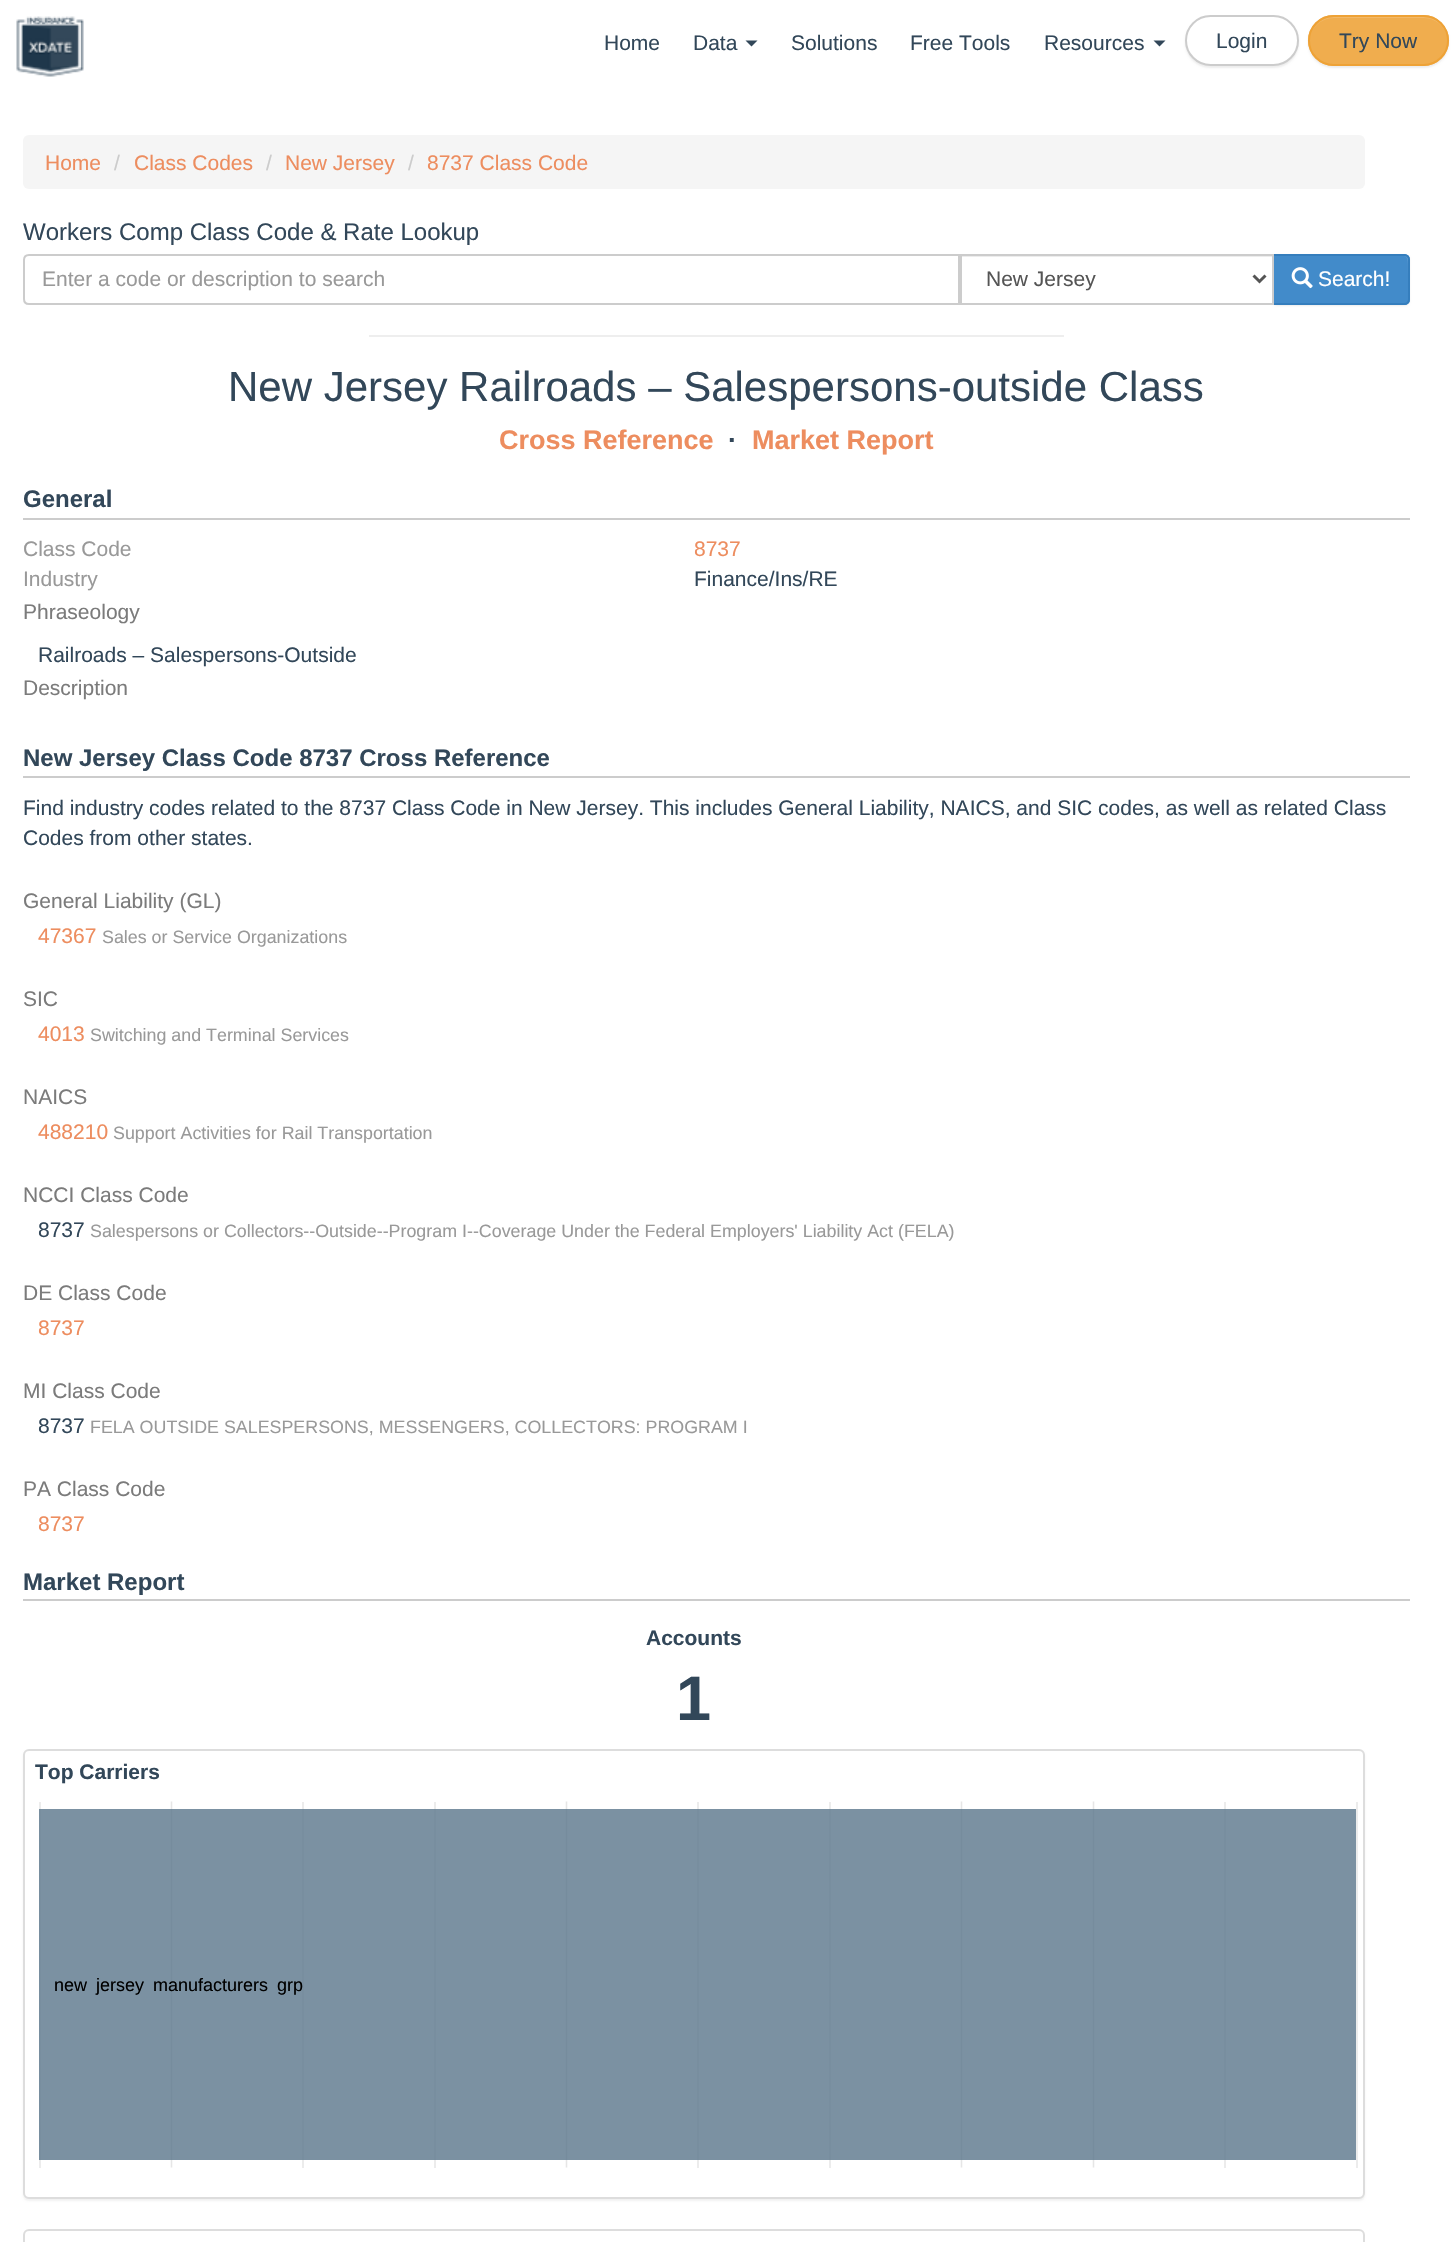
void draw(SkCanvas* canvas) {
    SkPaint paint;
    paint.setAntiAlias(true);
    auto face = [&](const char* family, int weight, float size, bool italic = false) {
        SkFontStyle style(weight, SkFontStyle::kNormal_Width,
            italic ? SkFontStyle::kItalic_Slant : SkFontStyle::kUpright_Slant);
        SkFont result(fontMgr->matchFamilyStyle(family, style), size);
        result.setSubpixel(true);
        return result;
    };
    auto write = [&](const char* s, float x, float y, const SkFont& font, SkColor color) {
        SkPaint ink(SkColor4f::FromColor(color));
        ink.setAntiAlias(true);
        canvas->drawString(s, x, y, font, ink);
    };
    auto writeSpaced = [&](const char* s, float x, float y, const SkFont& font, const SkPaint& ink, float letter, float word) {
        std::vector<SkGlyphID> glyphs(font.countText(s, strlen(s), SkTextEncoding::kUTF8));
        std::vector<float> xs(glyphs.size());
        font.textToGlyphs(s, strlen(s), SkTextEncoding::kUTF8, glyphs);
        font.getXPos(glyphs, xs, x);
        float extra = 0;
        for (size_t i = 0; i < glyphs.size(); i++) {
            xs[i] += extra;
            extra += letter + word * (glyphs[i] == font.unicharToGlyph(' '));
        }
        canvas->drawTextBlob(SkTextBlob::MakeFromPosHGlyphs(glyphs, xs, y, font), 0, 0, ink);
    };
    auto block = [&](float x, float y, float w, float h, SkColor color) {
        SkPaint ink(SkColor4f::FromColor(color));
        ink.setAntiAlias(true);
        canvas->drawRect(SkRect::MakeXYWH(x, y, w, h), ink);
    };
    auto card = [&](float x, float y, float w, float h, float radius, SkColor color) {
        SkPaint ink(SkColor4f::FromColor(color));
        ink.setAntiAlias(true);
        canvas->drawRoundRect(SkRect::MakeXYWH(x, y, w, h), radius, radius, ink);
    };
    auto paste = [&](const char* path, float x, float y, float w, float h) {
        auto image = SkImages::DeferredFromEncodedData(SkData::MakeFromFileName(path));
        canvas->drawImageRect(image, SkRect::MakeXYWH(x, y, w, h), SkSamplingOptions());
    };
    canvas->clear(SK_ColorWHITE);
    paste("pic1.png", 16, 16, 68, 61);
    auto kFont1 = face("Liberation Sans", 400, 21);
    write("Home", 604, 50, kFont1, SkColorSetRGB(50, 71, 89));
    write("Data", 693, 50, kFont1, SkColorSetRGB(50, 71, 89));
    paint.setColor(SkColorSetRGB(50, 71, 89));
    canvas->drawPath(SkPathBuilder().moveTo(745.5f, 40.5f).lineTo(757.5f, 40.5f).lineTo(751.5f, 46.5f).close().detach(), paint);
    write("Solutions", 791, 50, kFont1, SkColorSetRGB(50, 71, 89));
    write("Free Tools", 910, 50, kFont1, SkColorSetRGB(50, 71, 89));
    write("Resources", 1044, 50, kFont1, SkColorSetRGB(50, 71, 89));
    canvas->drawPath(SkPathBuilder().moveTo(1153.5f, 40.5f).lineTo(1165.5f, 40.5f).lineTo(1159.5f, 46.5f).close().detach(), paint);
    paint.setColor(SkColorSetARGB(18, 0, 0, 0));
    paint.setMaskFilter(SkMaskFilter::MakeBlur(kNormal_SkBlurStyle, 1));
    canvas->drawRoundRect(SkRect::MakeXYWH(1185, 17, 114, 51), 25.5f, 25.5f, paint);
    paint.setMaskFilter(nullptr);
    paint.setColor(SK_ColorWHITE);
    canvas->drawRoundRect(SkRect::MakeXYWH(1186, 16, 112, 49), 24.5f, 24.5f, paint);
    paint.setStyle(SkPaint::kStroke_Style);
    paint.setStrokeWidth(2);
    paint.setColor(SkColorSetRGB(204, 204, 204));
    canvas->drawRoundRect(SkRect::MakeXYWH(1186, 16, 112, 49), 24.5f, 24.5f, paint);
    write("Login", 1216, 48, kFont1, SkColorSetRGB(50, 71, 89));
    paint.setStyle(SkPaint::kFill_Style);
    paint.setColor(SkColorSetARGB(18, 0, 0, 0));
    paint.setMaskFilter(SkMaskFilter::MakeBlur(kNormal_SkBlurStyle, 1));
    canvas->drawRoundRect(SkRect::MakeXYWH(1308, 17, 141, 51), 25.5f, 25.5f, paint);
    paint.setMaskFilter(nullptr);
    card(1308, 15, 141, 51, 25.5f, SkColorSetRGB(240, 173, 78));
    paint.setColor(SkColorSetRGB(242, 185, 105));
    canvas->drawPath(SkPathBuilder().moveTo(1334, 18).lineTo(1424, 18).cubicTo(1437, 18, 1448, 29, 1448, 42).lineTo(1448, 41).cubicTo(1448, 28, 1437, 17, 1424, 17).lineTo(1334, 17).cubicTo(1321, 17, 1310, 28, 1310, 41).cubicTo(1310, 29, 1320, 18, 1334, 18).close().detach(), paint);
    paint.setStyle(SkPaint::kStroke_Style);
    paint.setColor(SkColorSetRGB(238, 162, 54));
    canvas->drawRoundRect(SkRect::MakeXYWH(1309, 16, 139, 49), 24.5f, 24.5f, paint);
    write("Try Now", 1339, 48, kFont1, SkColorSetRGB(50, 71, 89));
    card(23, 135, 1342, 54, 6, SkColorSetRGB(245, 245, 245));
    write("Home", 45, 170, kFont1, SkColorSetRGB(237, 141, 95));
    write("/", 114, 170, kFont1, SkColorSetRGB(204, 204, 204));
    write("Class Codes", 134, 170, kFont1, SkColorSetRGB(237, 141, 95));
    write("/", 266, 170, kFont1, SkColorSetRGB(204, 204, 204));
    write("New Jersey", 285, 170, kFont1, SkColorSetRGB(237, 141, 95));
    write("/", 408, 170, kFont1, SkColorSetRGB(204, 204, 204));
    write("8737 Class Code", 427, 170, kFont1, SkColorSetRGB(237, 141, 95));
    auto kFont2 = face("Liberation Sans", 400, 24);
    write("Workers Comp Class Code & Rate Lookup", 23, 240, kFont2, SkColorSetRGB(50, 71, 89));
    paint.setColor(SkColorSetRGB(204, 204, 204));
    canvas->drawPath(SkPathBuilder().moveTo(29, 255).lineTo(959, 255).lineTo(959, 304).lineTo(29, 304).cubicTo(26, 304, 24, 302, 24, 299).lineTo(24, 260).cubicTo(24, 257, 26, 255, 29, 255).close().detach(), paint);
    write("Enter a code or description to search", 42, 286, kFont1, SkColorSetRGB(153, 153, 153));
    paint.setStyle(SkPaint::kFill_Style);
    paint.setColor(SkColorSetARGB(18, 0, 0, 0));
    paint.setMaskFilter(SkMaskFilter::MakeBlur(kNormal_SkBlurStyle, 1));
    canvas->drawRoundRect(SkRect::MakeXYWH(1272, 255, 138, 51), 6, 6, paint);
    paint.setMaskFilter(nullptr);
    block(1271, 258, 1, 45, SK_ColorWHITE);
    block(962, 256, 310, 1, SkColorSetRGB(236, 236, 236));
    paint.setColor(SkColorSetRGB(66, 139, 202));
    canvas->drawPath(SkPathBuilder().moveTo(1272, 254).lineTo(1404, 254).cubicTo(1407.5f, 254, 1410, 256.5f, 1410, 260).lineTo(1410, 299).cubicTo(1410, 302.5f, 1407.5f, 305, 1404, 305).lineTo(1272, 305).close().detach(), paint);
    paint.setColor(SkColorSetRGB(94, 156, 210));
    canvas->drawPath(SkPathBuilder().moveTo(1274, 256).lineTo(1382, 256).cubicTo(1409, 256, 1408, 251, 1408, 274).lineTo(1408, 301).cubicTo(1409, 300, 1409, 299, 1409, 298).lineTo(1409, 260).cubicTo(1409, 257, 1407, 255, 1404, 255).lineTo(1274, 255).close().detach(), paint);
    paint.setStyle(SkPaint::kStroke_Style);
    paint.setColor(SkColorSetRGB(53, 126, 189));
    canvas->drawPath(SkPathBuilder().moveTo(1273, 255).lineTo(1404, 255).cubicTo(1407, 255, 1409, 257, 1409, 260).lineTo(1409, 299).cubicTo(1409, 302, 1407, 304, 1404, 304).lineTo(1273, 304).close().detach(), paint);
    paint.setColor(SkColorSetRGB(204, 204, 204));
    canvas->drawRect(SkRect::MakeXYWH(961, 255, 312, 49), paint);
    paint.setStrokeWidth(3);
    paint.setColor(SkColorSetRGB(85, 85, 85));
    canvas->drawPath(SkPathBuilder().moveTo(1253.5f, 275.5f).lineTo(1259.5f, 281.5f).lineTo(1265.5f, 275.5f).detach(), paint);
    write("New Jersey", 986, 286, kFont1, SkColorSetRGB(85, 85, 85));
    paste("pic2.png", 1291, 267, 22, 22);
    write("Search!", 1318, 286, kFont1, SK_ColorWHITE);
    block(369, 335, 695, 2, SkColorSetRGB(238, 238, 238));
    auto kFont3 = face("Liberation Sans", 400, 42);
    write("New Jersey Railroads – Salespersons-outside Class", 228, 401, kFont3, SkColorSetRGB(50, 71, 89));
    auto kFont4 = face("Liberation Sans", 700, 27);
    write("Cross Reference", 499, 449, kFont4, SkColorSetRGB(237, 141, 95));
    write("·", 728, 449, kFont4, SkColorSetRGB(50, 71, 89));
    write("Market Report", 752, 449, kFont4, SkColorSetRGB(237, 141, 95));
    block(23, 518, 1387, 2, SkColorSetRGB(204, 204, 204));
    auto kFont5 = face("Liberation Sans", 700, 24);
    write("General", 23, 507, kFont5, SkColorSetRGB(50, 71, 89));
    write("Class Code", 23, 556, kFont1, SkColorSetRGB(153, 153, 153));
    write("8737", 694, 556, kFont1, SkColorSetRGB(237, 141, 95));
    write("Industry", 23, 586, kFont1, SkColorSetRGB(153, 153, 153));
    write("Finance/Ins/RE", 694, 586, kFont1, SkColorSetRGB(50, 71, 89));
    write("Phraseology", 23, 619, kFont1, SkColorSetRGB(123, 123, 123));
    write("Railroads – Salespersons-Outside", 38, 662, kFont1, SkColorSetRGB(50, 71, 89));
    write("Description", 23, 695, kFont1, SkColorSetRGB(123, 123, 123));
    block(23, 776, 1387, 2, SkColorSetRGB(204, 204, 204));
    write("New Jersey Class Code 8737 Cross Reference", 23, 766, kFont5, SkColorSetRGB(50, 71, 89));
    write("Find industry codes related to the 8737 Class Code in New Jersey. This includes General Liability, NAICS, and SIC codes, as well as related Class", 23, 815, kFont1, SkColorSetRGB(50, 71, 89));
    write("Codes from other states.", 23, 845, kFont1, SkColorSetRGB(50, 71, 89));
    write("General Liability (GL)", 23, 908, kFont1, SkColorSetRGB(123, 123, 123));
    write("47367", 38, 943, kFont1, SkColorSetRGB(237, 141, 95));
    auto kFont6 = face("Liberation Sans", 400, 17.85f);
    write("Sales or Service Organizations", 102, 943, kFont6, SkColorSetRGB(153, 153, 153));
    write("SIC", 23, 1006, kFont1, SkColorSetRGB(123, 123, 123));
    write("4013", 38, 1041, kFont1, SkColorSetRGB(237, 141, 95));
    write("Switching and Terminal Services", 90, 1041, kFont6, SkColorSetRGB(153, 153, 153));
    write("NAICS", 23, 1104, kFont1, SkColorSetRGB(123, 123, 123));
    write("488210", 38, 1139, kFont1, SkColorSetRGB(237, 141, 95));
    write("Support Activities for Rail Transportation", 113, 1139, kFont6, SkColorSetRGB(153, 153, 153));
    write("NCCI Class Code", 23, 1202, kFont1, SkColorSetRGB(123, 123, 123));
    write("8737", 38, 1237, kFont1, SkColorSetRGB(50, 71, 89));
    write("Salespersons or Collectors--Outside--Program I--Coverage Under the Federal Employers' Liability Act (FELA)", 90, 1237, kFont6, SkColorSetRGB(153, 153, 153));
    write("DE Class Code", 23, 1300, kFont1, SkColorSetRGB(123, 123, 123));
    write("8737", 38, 1335, kFont1, SkColorSetRGB(237, 141, 95));
    write("MI Class Code", 23, 1398, kFont1, SkColorSetRGB(123, 123, 123));
    write("8737", 38, 1433, kFont1, SkColorSetRGB(50, 71, 89));
    write("FELA OUTSIDE SALESPERSONS, MESSENGERS, COLLECTORS: PROGRAM I", 90, 1433, kFont6, SkColorSetRGB(153, 153, 153));
    write("PA Class Code", 23, 1496, kFont1, SkColorSetRGB(123, 123, 123));
    write("8737", 38, 1531, kFont1, SkColorSetRGB(237, 141, 95));
    block(23, 1599, 1387, 2, SkColorSetRGB(204, 204, 204));
    write("Market Report", 23, 1590, kFont5, SkColorSetRGB(50, 71, 89));
    auto kFont7 = face("Liberation Sans", 700, 21);
    write("Accounts", 646, 1645, kFont7, SkColorSetRGB(50, 71, 89));
    auto kFont8 = face("Liberation Sans", 700, 63);
    write("1", 676, 1720, kFont8, SkColorSetRGB(50, 71, 89));
    paint.setStyle(SkPaint::kFill_Style);
    paint.setColor(SkColorSetARGB(13, 0, 0, 0));
    paint.setMaskFilter(SkMaskFilter::MakeBlur(kNormal_SkBlurStyle, 1));
    canvas->drawRoundRect(SkRect::MakeXYWH(23, 1751, 1342, 450), 6, 6, paint);
    paint.setMaskFilter(nullptr);
    paint.setColor(SK_ColorWHITE);
    canvas->drawRoundRect(SkRect::MakeXYWH(24, 1750, 1340, 448), 5, 5, paint);
    paint.setStyle(SkPaint::kStroke_Style);
    paint.setStrokeWidth(2);
    paint.setColor(SkColorSetRGB(221, 221, 221));
    canvas->drawRoundRect(SkRect::MakeXYWH(24, 1750, 1340, 448), 5, 5, paint);
    write("Top Carriers", 35, 1779, kFont7, SkColorSetRGB(50, 71, 89));
    paint.setStrokeWidth(1.5f);
    paint.setColor(SkColorSetRGB(230, 230, 230));
    canvas->drawPath(SkPathBuilder().moveTo(171.5f, 2167.5f).lineTo(171.5f, 1801.5f).detach(), paint);
    block(302, 1802, 2, 366, SkColorSetRGB(236, 236, 236));
    block(39, 1802, 2, 366, SkColorSetRGB(236, 236, 236));
    block(434, 1802, 2, 366, SkColorSetRGB(236, 236, 236));
    canvas->drawPath(SkPathBuilder().moveTo(566.5f, 2167.5f).lineTo(566.5f, 1801.5f).detach(), paint);
    block(697, 1802, 2, 366, SkColorSetRGB(236, 236, 236));
    block(829, 1802, 2, 366, SkColorSetRGB(236, 236, 236));
    canvas->drawPath(SkPathBuilder().moveTo(961.5f, 2167.5f).lineTo(961.5f, 1801.5f).detach(), paint);
    canvas->drawPath(SkPathBuilder().moveTo(1093.5f, 2167.5f).lineTo(1093.5f, 1801.5f).detach(), paint);
    block(1224, 1802, 2, 366, SkColorSetRGB(236, 236, 236));
    block(39, 1809, 1317, 351, SkColorSetARGB(204, 90, 117, 139));
    auto kFont9 = face("Liberation Sans", 400, 18);
    paint.setStyle(SkPaint::kFill_Style);
    paint.setColor(SK_ColorBLACK);
    writeSpaced("new jersey manufacturers grp", 54, 1991, kFont9, paint, 0, 4);
    block(1356, 1802, 2, 366, SkColorSetRGB(236, 236, 236));
    paint.setStyle(SkPaint::kStroke_Style);
    paint.setStrokeWidth(2);
    paint.setColor(SkColorSetRGB(221, 221, 221));
    canvas->drawRoundRect(SkRect::MakeXYWH(24, 2230, 1340, 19), 5, 5, paint);
}
